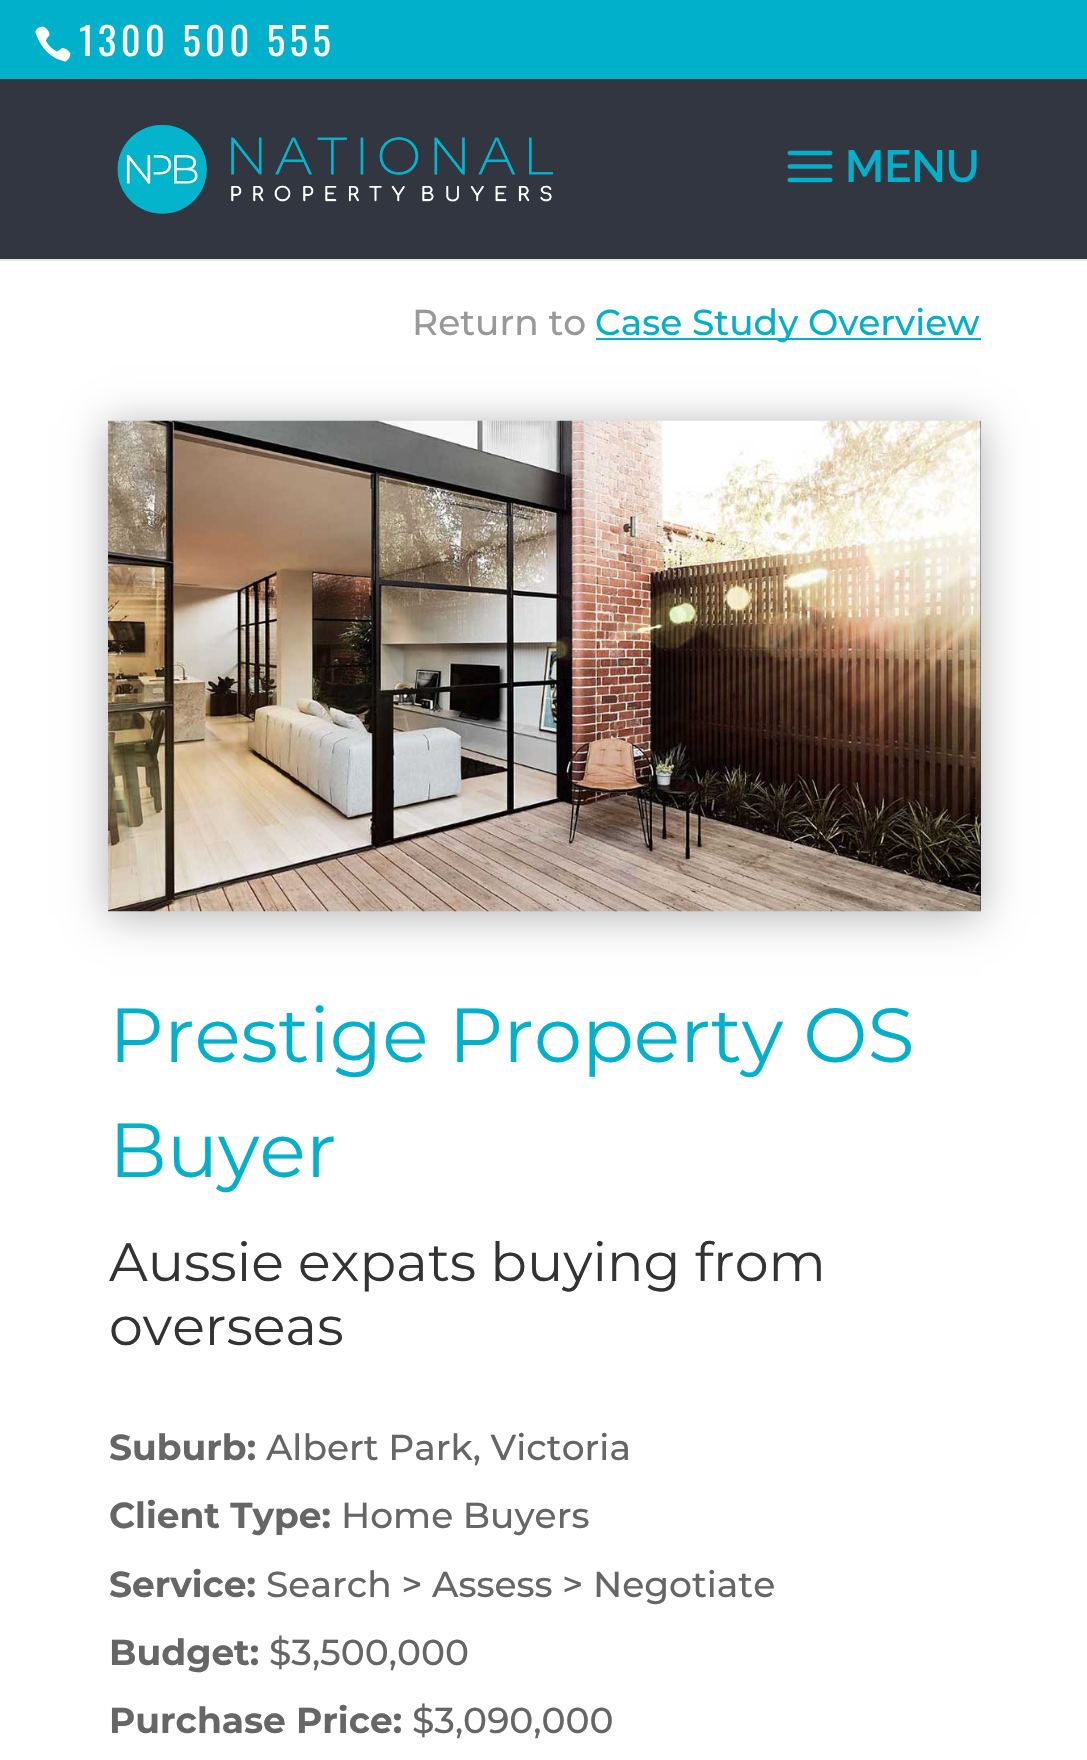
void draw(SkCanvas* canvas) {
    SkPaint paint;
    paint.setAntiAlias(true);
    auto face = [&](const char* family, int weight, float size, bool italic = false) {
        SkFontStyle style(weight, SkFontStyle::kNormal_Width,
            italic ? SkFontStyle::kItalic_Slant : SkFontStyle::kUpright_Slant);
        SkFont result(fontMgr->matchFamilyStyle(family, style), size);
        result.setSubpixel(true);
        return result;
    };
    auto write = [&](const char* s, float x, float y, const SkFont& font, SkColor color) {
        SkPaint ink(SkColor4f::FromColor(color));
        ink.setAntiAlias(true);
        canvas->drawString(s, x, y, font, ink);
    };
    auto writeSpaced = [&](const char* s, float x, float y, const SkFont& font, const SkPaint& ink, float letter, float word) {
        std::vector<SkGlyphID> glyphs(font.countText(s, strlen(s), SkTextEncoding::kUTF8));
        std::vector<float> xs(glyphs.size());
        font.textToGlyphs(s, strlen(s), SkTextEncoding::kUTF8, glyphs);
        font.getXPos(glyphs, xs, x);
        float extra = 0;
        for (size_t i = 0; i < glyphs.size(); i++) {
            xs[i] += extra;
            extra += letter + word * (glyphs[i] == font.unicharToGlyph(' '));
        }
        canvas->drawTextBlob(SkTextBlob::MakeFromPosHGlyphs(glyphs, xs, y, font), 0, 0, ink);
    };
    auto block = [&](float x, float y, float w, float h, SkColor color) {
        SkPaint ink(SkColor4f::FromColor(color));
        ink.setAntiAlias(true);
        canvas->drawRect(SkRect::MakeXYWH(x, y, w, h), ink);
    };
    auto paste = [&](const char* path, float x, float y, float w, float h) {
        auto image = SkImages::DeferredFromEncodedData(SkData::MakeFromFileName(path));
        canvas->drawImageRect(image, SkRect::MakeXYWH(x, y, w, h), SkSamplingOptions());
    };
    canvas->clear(SK_ColorWHITE);
    block(0, 0, 1087, 79, SkColorSetRGB(1, 177, 203));
    paste("pic1.png", 35, 26, 36, 36);
    auto kFont1 = face("Oswald", 400, 38.25f);
    paint.setColor(SK_ColorWHITE);
    writeSpaced("1300 500 555", 79, 56, kFont1, paint, 4.5f, 0);
    block(0, 259, 1087, 2, SkColorSetRGB(230, 230, 230));
    block(0, 79, 1087, 180, SkColorSetRGB(50, 54, 64));
    paste("pic2.png", 117, 125, 436, 89);
    paste("pic3.png", 787, 150, 46, 33);
    auto kFont2 = face("Raleway", 600, 45);
    write("MENU", 845, 182, kFont2, SkColorSetRGB(1, 177, 203));
    auto kFont3 = face("Montserrat", 500, 36);
    write("Return to", 412, 335, kFont3, SkColorSetRGB(153, 153, 153));
    block(596, 338, 385, 2, SkColorSetRGB(1, 177, 203));
    write("Case Study Overview", 595, 335, kFont3, SkColorSetRGB(1, 177, 203));
    paint.setColor(SkColorSetARGB(77, 0, 0, 0));
    paint.setMaskFilter(SkMaskFilter::MakeBlur(kNormal_SkBlurStyle, 20));
    canvas->drawRect(SkRect::MakeXYWH(108, 425, 873, 491), paint);
    paint.setMaskFilter(nullptr);
    paste("pic4.png", 108, 420, 873, 492);
    auto kFont4 = face("Montserrat", 400, 76.5f);
    write("Prestige Property OS", 109, 1062, kFont4, SkColorSetRGB(1, 177, 203));
    write("Buyer", 109, 1177, kFont4, SkColorSetRGB(1, 177, 203));
    auto kFont5 = face("Montserrat", 400, 54);
    write("Aussie expats buying from", 109, 1281, kFont5, SkColorSetRGB(51, 51, 51));
    write("overseas", 109, 1345, kFont5, SkColorSetRGB(51, 51, 51));
    auto kFont6 = face("Montserrat", 700, 36);
    write("Suburb:", 109, 1460, kFont6, SkColorSetRGB(102, 102, 102));
    write("Albert Park, Victoria", 266, 1460, kFont3, SkColorSetRGB(102, 102, 102));
    write("Client Type:", 109, 1528, kFont6, SkColorSetRGB(102, 102, 102));
    write("Home Buyers", 341, 1528, kFont3, SkColorSetRGB(102, 102, 102));
    write("Service:", 109, 1597, kFont6, SkColorSetRGB(102, 102, 102));
    write("Search > Assess > Negotiate", 266, 1597, kFont3, SkColorSetRGB(102, 102, 102));
    write("Budget:", 109, 1665, kFont6, SkColorSetRGB(102, 102, 102));
    write("$3,500,000", 269, 1665, kFont3, SkColorSetRGB(102, 102, 102));
    write("Purchase Price:", 109, 1733, kFont6, SkColorSetRGB(102, 102, 102));
    write("$3,090,000", 412, 1733, kFont3, SkColorSetRGB(102, 102, 102));
}
